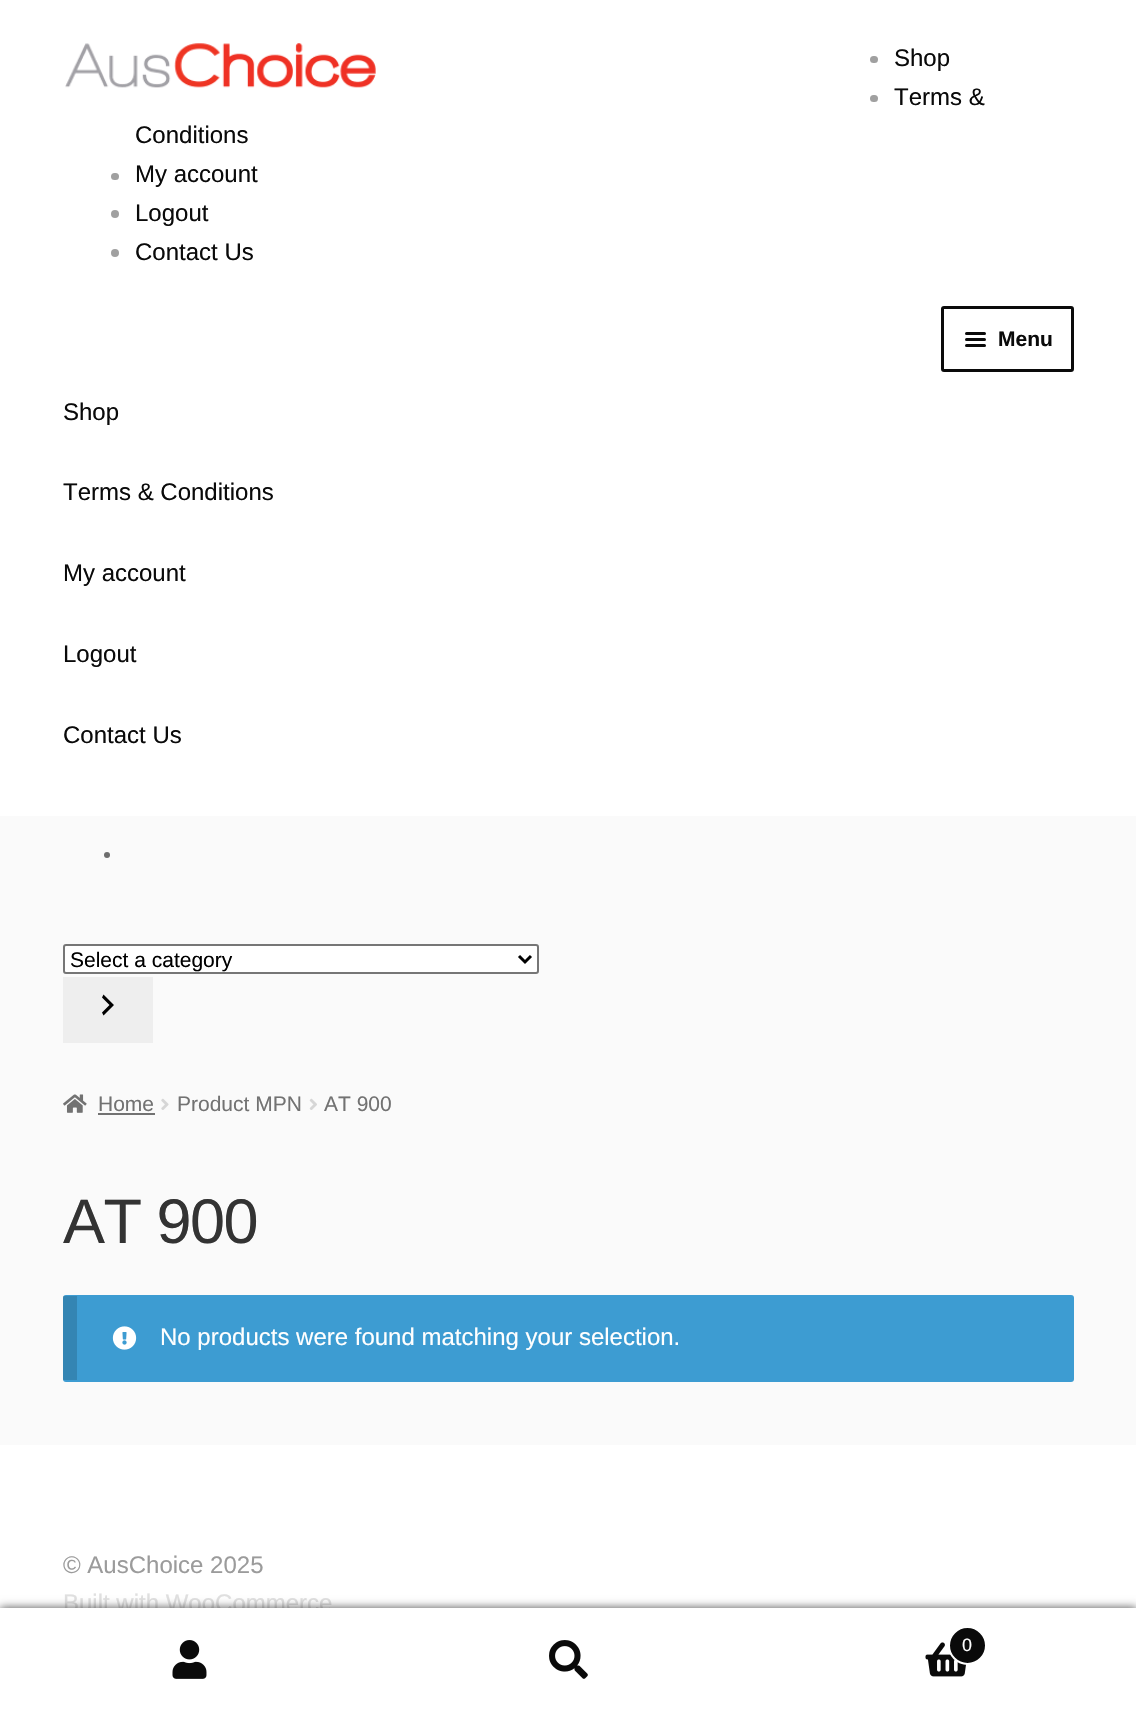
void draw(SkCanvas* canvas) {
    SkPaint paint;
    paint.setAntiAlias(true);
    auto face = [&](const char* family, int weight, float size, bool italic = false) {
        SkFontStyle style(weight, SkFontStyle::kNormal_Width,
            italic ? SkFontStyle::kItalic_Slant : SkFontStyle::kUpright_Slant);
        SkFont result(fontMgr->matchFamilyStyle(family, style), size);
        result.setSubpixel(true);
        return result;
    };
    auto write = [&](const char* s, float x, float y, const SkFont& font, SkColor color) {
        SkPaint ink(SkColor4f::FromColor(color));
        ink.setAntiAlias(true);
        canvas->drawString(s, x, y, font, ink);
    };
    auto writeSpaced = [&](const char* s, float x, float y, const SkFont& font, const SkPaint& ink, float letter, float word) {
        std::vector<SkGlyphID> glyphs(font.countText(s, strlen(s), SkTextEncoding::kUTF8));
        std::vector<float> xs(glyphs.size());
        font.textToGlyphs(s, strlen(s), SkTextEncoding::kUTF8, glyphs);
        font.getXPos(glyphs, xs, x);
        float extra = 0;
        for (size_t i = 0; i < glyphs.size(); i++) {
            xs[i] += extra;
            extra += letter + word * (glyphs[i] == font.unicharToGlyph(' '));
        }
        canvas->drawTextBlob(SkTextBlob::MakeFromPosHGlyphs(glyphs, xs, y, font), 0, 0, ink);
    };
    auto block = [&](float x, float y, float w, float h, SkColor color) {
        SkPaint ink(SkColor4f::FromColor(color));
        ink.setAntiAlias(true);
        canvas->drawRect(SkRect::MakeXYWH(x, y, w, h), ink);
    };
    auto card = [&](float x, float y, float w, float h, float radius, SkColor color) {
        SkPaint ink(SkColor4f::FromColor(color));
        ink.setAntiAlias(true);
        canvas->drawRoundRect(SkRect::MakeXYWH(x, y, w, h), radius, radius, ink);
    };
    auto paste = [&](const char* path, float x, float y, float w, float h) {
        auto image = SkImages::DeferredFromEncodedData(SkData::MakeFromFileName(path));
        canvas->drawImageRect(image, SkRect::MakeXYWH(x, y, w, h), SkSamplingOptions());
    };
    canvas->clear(SkColorSetRGB(250, 250, 250));
    block(0, 0, 1136, 816, SK_ColorWHITE);
    paste("pic1.png", 65, 43, 311, 45);
    card(870, 56, 8, 7, 3.5f, SkColorSetRGB(160, 160, 160));
    auto kFont1 = face("Liberation Sans", 400, 24);
    write("Shop", 894, 66, kFont1, SkColorSetRGB(10, 10, 10));
    card(870, 95, 8, 7, 3.5f, SkColorSetRGB(160, 160, 160));
    write("Terms &", 894, 105, kFont1, SkColorSetRGB(10, 10, 10));
    write("Conditions", 135, 143, kFont1, SkColorSetRGB(10, 10, 10));
    card(111, 173, 8, 7, 3.5f, SkColorSetRGB(160, 160, 160));
    write("My account", 135, 182, kFont1, SkColorSetRGB(10, 10, 10));
    paint.setColor(SkColorSetRGB(160, 160, 160));
    canvas->drawCircle(115, 214, 4, paint);
    write("Logout", 135, 221, kFont1, SkColorSetRGB(10, 10, 10));
    canvas->drawCircle(115, 253, 4, paint);
    write("Contact Us", 135, 260, kFont1, SkColorSetRGB(10, 10, 10));
    paint.setStyle(SkPaint::kStroke_Style);
    paint.setStrokeWidth(3);
    paint.setColor(SkColorSetRGB(10, 10, 10));
    canvas->drawRoundRect(SkRect::MakeXYWH(942.5f, 307.5f, 130, 63), 1.5f, 1.5f, paint);
    card(965, 332, 21, 3, 1.5f, SkColorSetRGB(10, 10, 10));
    card(965, 338, 21, 3, 1.5f, SkColorSetRGB(10, 10, 10));
    auto kFont2 = face("Liberation Sans", 700, 21);
    write("Menu", 998, 346, kFont2, SkColorSetRGB(10, 10, 10));
    card(965, 344, 21, 3, 1.5f, SkColorSetRGB(10, 10, 10));
    write("Shop", 63, 420, kFont1, SkColorSetRGB(10, 10, 10));
    write("Terms & Conditions", 63, 500, kFont1, SkColorSetRGB(10, 10, 10));
    write("My account", 63, 581, kFont1, SkColorSetRGB(10, 10, 10));
    write("Logout", 63, 662, kFont1, SkColorSetRGB(10, 10, 10));
    write("Contact Us", 63, 743, kFont1, SkColorSetRGB(10, 10, 10));
    paint.setStyle(SkPaint::kFill_Style);
    paint.setColor(SkColorSetRGB(109, 109, 109));
    canvas->drawCircle(107, 855, 3, paint);
    paint.setColor(SK_ColorWHITE);
    canvas->drawRoundRect(SkRect::MakeXYWH(64, 945, 474, 28), 2, 2, paint);
    paint.setStyle(SkPaint::kStroke_Style);
    paint.setStrokeWidth(2);
    paint.setColor(SkColorSetRGB(118, 118, 118));
    canvas->drawRoundRect(SkRect::MakeXYWH(64, 945, 474, 28), 2, 2, paint);
    paint.setStrokeWidth(3);
    paint.setColor(SK_ColorBLACK);
    canvas->drawPath(SkPathBuilder().moveTo(519, 956).lineTo(525, 962).lineTo(531, 956).detach(), paint);
    auto kFont3 = face("Liberation Sans", 400, 21);
    write("Select a category", 70, 967, kFont3, SK_ColorBLACK);
    block(63, 977, 90, 66, SkColorSetRGB(238, 238, 238));
    paint.setStyle(SkPaint::kFill_Style);
    canvas->drawPath(SkPathBuilder().moveTo(102, 1012.5f).lineTo(109.5f, 1005).lineTo(102, 997.5f).lineTo(103.5f, 994.5f).lineTo(114, 1005).lineTo(103.5f, 1015.5f).close().detach(), paint);
    paste("pic2.png", 63, 1094, 24, 19);
    write("Home", 98, 1111, kFont3, SkColorSetRGB(114, 114, 114));
    block(98, 1113, 57, 2, SkColorSetRGB(114, 114, 114));
    paste("pic3.png", 161, 1098, 8, 12);
    write("Product MPN", 177, 1111, kFont3, SkColorSetRGB(114, 114, 114));
    paste("pic4.png", 309, 1098, 8, 12);
    write("AT 900", 324, 1111, kFont3, SkColorSetRGB(114, 114, 114));
    auto kFont4 = face("Liberation Sans", 400, 63);
    paint.setColor(SkColorSetRGB(51, 51, 51));
    writeSpaced("AT 900", 63, 1243, kFont4, paint, -1.5f, 0);
    card(63, 1295, 1011, 87, 3, SkColorSetRGB(61, 156, 210));
    block(63, 1296, 14, 84, SkColorSetARGB(38, 0, 0, 0));
    paste("pic5.png", 112, 1326, 25, 24);
    write("No products were found matching your selection.", 160, 1345, kFont1, SK_ColorWHITE);
    block(0, 1445, 1136, 163, SK_ColorWHITE);
    write("© AusChoice 2025", 63, 1573, kFont1, SkColorSetRGB(155, 155, 155));
    write("Built with WooCommerce", 63, 1611, kFont1, SkColorSetRGB(224, 224, 224));
    paint.setColor(SkColorSetARGB(179, 0, 0, 0));
    paint.setMaskFilter(SkMaskFilter::MakeBlur(kNormal_SkBlurStyle, 4.5f));
    canvas->drawRect(SkRect::MakeXYWH(0, 1608, 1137, 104), paint);
    paint.setMaskFilter(nullptr);
    block(0, 1608, 1136, 2, SK_ColorWHITE);
    block(0, 1610, 1136, 101, SK_ColorWHITE);
    paste("pic6.png", 172, 1640, 35, 39);
    paste("pic7.png", 549, 1640, 39, 39);
    paste("pic8.png", 925, 1642, 42, 35);
    paint.setColor(SkColorSetRGB(10, 10, 10));
    canvas->drawCircle(967.5f, 1645.5f, 18.5f, paint);
    paint.setStyle(SkPaint::kStroke_Style);
    paint.setStrokeWidth(2);
    paint.setColor(SK_ColorWHITE);
    canvas->drawCircle(967.5f, 1645.5f, 18.5f, paint);
    auto kFont5 = face("Liberation Sans", 400, 18);
    write("0", 962, 1651, kFont5, SK_ColorWHITE);
}
